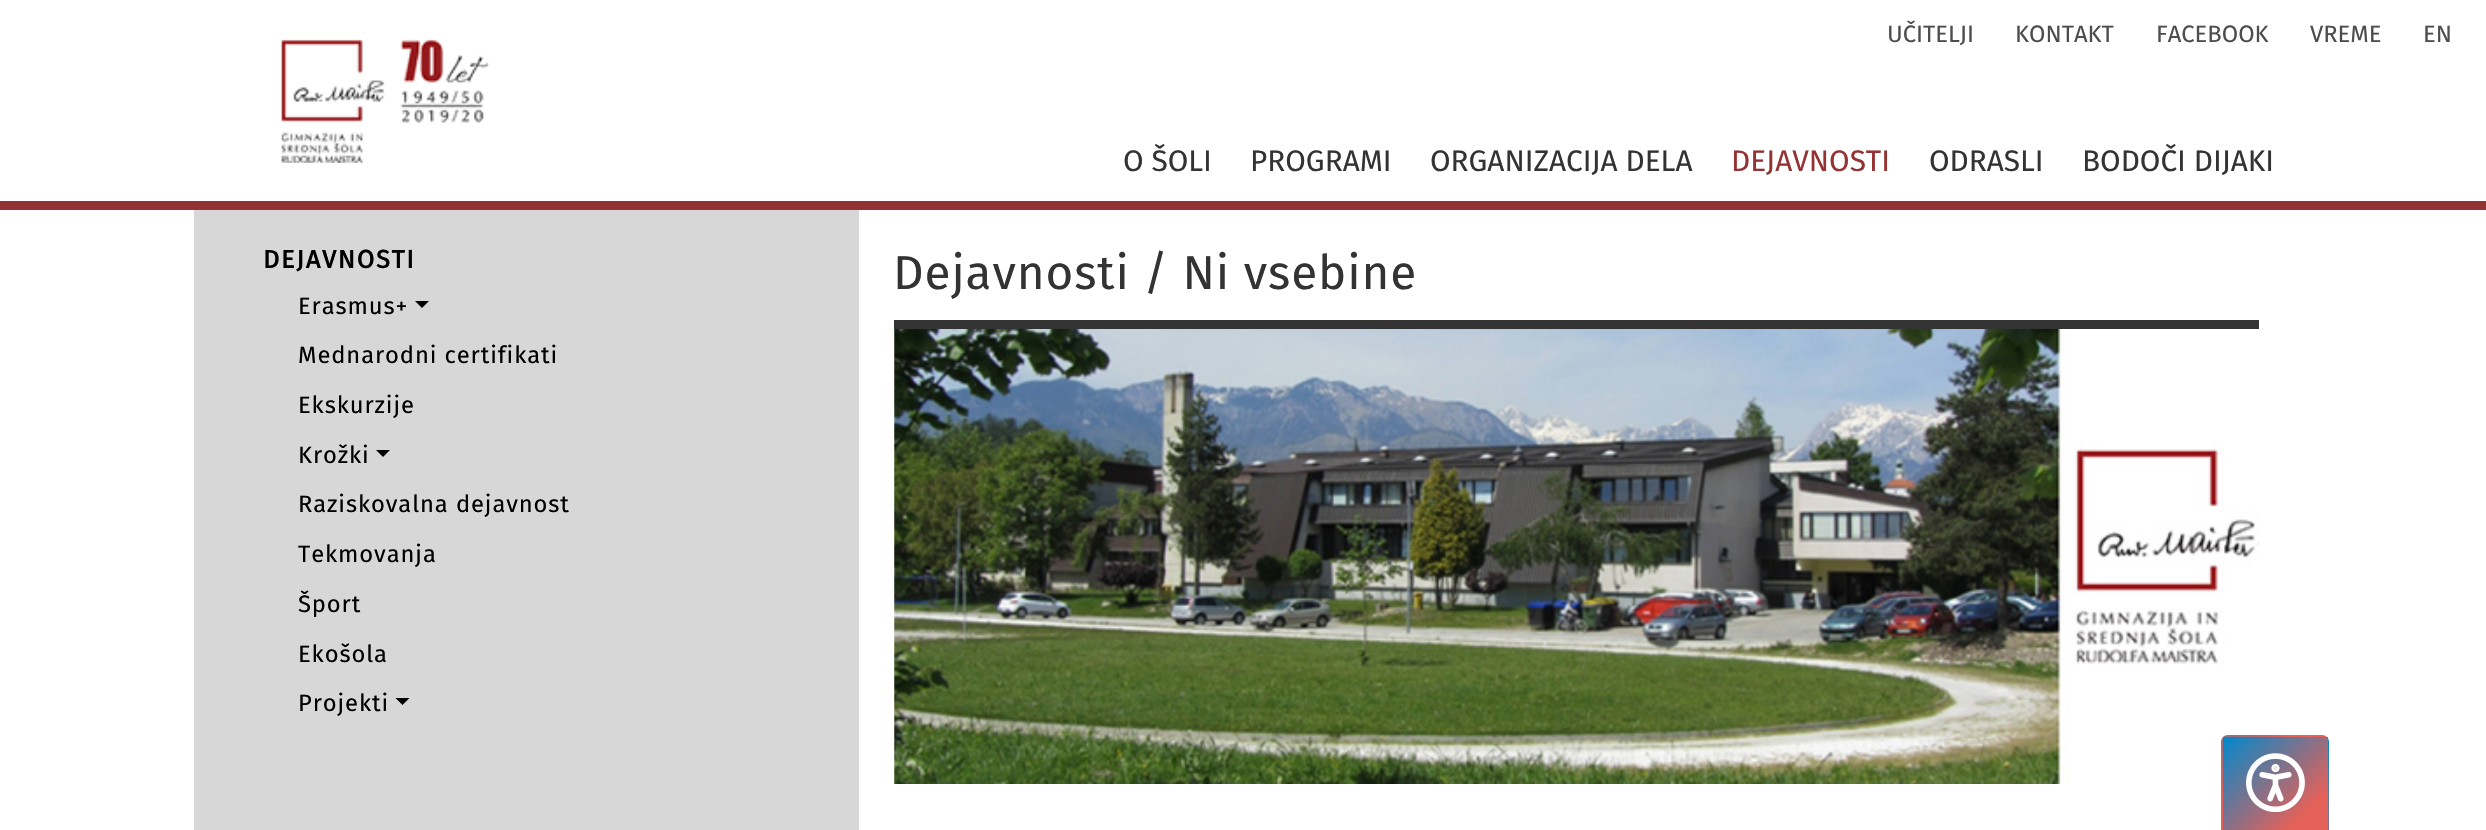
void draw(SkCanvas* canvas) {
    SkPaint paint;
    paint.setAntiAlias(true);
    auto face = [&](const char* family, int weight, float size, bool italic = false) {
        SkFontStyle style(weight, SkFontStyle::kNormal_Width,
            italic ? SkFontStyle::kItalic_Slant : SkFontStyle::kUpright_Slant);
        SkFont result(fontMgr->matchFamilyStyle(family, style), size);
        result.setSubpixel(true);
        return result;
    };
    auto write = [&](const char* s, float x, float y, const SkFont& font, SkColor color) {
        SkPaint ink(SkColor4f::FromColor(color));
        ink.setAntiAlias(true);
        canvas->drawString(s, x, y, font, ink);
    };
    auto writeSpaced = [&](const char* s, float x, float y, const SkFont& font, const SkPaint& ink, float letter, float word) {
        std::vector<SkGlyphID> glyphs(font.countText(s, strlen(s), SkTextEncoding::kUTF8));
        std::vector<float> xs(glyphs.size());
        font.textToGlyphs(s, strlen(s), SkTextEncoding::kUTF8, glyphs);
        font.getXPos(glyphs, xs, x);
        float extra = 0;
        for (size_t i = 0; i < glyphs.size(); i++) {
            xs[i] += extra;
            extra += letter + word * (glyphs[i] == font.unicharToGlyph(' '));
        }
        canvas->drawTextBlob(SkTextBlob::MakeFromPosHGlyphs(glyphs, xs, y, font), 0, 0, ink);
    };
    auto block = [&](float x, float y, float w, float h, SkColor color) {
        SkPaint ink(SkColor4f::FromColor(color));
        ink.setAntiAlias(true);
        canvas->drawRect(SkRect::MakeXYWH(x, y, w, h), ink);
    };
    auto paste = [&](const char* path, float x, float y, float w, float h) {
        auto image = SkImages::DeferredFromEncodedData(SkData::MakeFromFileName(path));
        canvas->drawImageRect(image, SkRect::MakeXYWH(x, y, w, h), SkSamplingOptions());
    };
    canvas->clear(SK_ColorWHITE);
    block(0, 201, 2486, 9, SkColorSetRGB(149, 50, 52));
    auto kFont1 = face("Fira Sans", 400, 23.75f);
    write("UČITELJI", 1887, 42, kFont1, SkColorSetRGB(77, 77, 77));
    write("KONTAKT", 2015, 42, kFont1, SkColorSetRGB(77, 77, 77));
    write("FACEBOOK", 2156, 42, kFont1, SkColorSetRGB(77, 77, 77));
    write("VREME", 2310, 42, kFont1, SkColorSetRGB(77, 77, 77));
    write("EN", 2423, 42, kFont1, SkColorSetRGB(77, 77, 77));
    paste("pic1.png", 281, 39, 208, 124);
    auto kFont2 = face("Fira Sans", 400, 29.75f);
    write("O ŠOLI", 1123, 171, kFont2, SkColorSetRGB(51, 51, 51));
    write("PROGRAMI", 1250, 171, kFont2, SkColorSetRGB(51, 51, 51));
    write("ORGANIZACIJA DELA", 1430, 171, kFont2, SkColorSetRGB(51, 51, 51));
    write("DEJAVNOSTI", 1731, 171, kFont2, SkColorSetRGB(149, 50, 52));
    write("ODRASLI", 1929, 171, kFont2, SkColorSetRGB(51, 51, 51));
    write("BODOČI DIJAKI", 2082, 171, kFont2, SkColorSetRGB(51, 51, 51));
    block(194, 210, 665, 620, SkColorSetRGB(215, 215, 215));
    auto kFont3 = face("Fira Sans", 700, 25.25f);
    paint.setColor(SK_ColorBLACK);
    writeSpaced("DEJAVNOSTI", 263, 268, kFont3, paint, 1.75f, 0);
    writeSpaced("Erasmus+", 298, 314, kFont1, paint, 0.9f, 0);
    canvas->drawPath(SkPathBuilder().moveTo(415, 301).lineTo(429, 301).lineTo(422, 308).close().detach(), paint);
    writeSpaced("Mednarodni certifikati", 298, 363, kFont1, paint, 0.9f, 0);
    writeSpaced("Ekskurzije", 298, 413, kFont1, paint, 0.9f, 0);
    writeSpaced("Krožki", 298, 463, kFont1, paint, 0.9f, 0);
    canvas->drawPath(SkPathBuilder().moveTo(376, 450).lineTo(390, 450).lineTo(383, 457).close().detach(), paint);
    writeSpaced("Raziskovalna dejavnost", 298, 512, kFont1, paint, 0.9f, 0);
    writeSpaced("Tekmovanja", 298, 562, kFont1, paint, 0.9f, 0);
    writeSpaced("Šport", 298, 612, kFont1, paint, 0.9f, 0);
    writeSpaced("Ekošola", 298, 662, kFont1, paint, 0.9f, 0);
    writeSpaced("Projekti", 298, 711, kFont1, paint, 0.9f, 0);
    canvas->drawPath(SkPathBuilder().moveTo(395.5f, 698).lineTo(409.5f, 698).lineTo(402.5f, 705).close().detach(), paint);
    block(894, 320, 1365, 9, SkColorSetRGB(51, 51, 51));
    auto kFont4 = face("Fira Sans", 400, 47.6f);
    paint.setColor(SkColorSetRGB(51, 51, 51));
    writeSpaced("Dejavnosti / Ni vsebine", 893, 289, kFont4, paint, 0.9f, 0);
    paste("pic2.png", 894, 329, 1366, 455);
    canvas->save();
    canvas->clipPath(SkPathBuilder().moveTo(2228, 735).lineTo(2322, 735).cubicTo(2326, 735, 2329, 738, 2329, 742).lineTo(2329, 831).lineTo(2221, 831).lineTo(2221, 742).cubicTo(2221, 738, 2224, 735, 2228, 735).close().detach(), true);
    {
        const SkColor colors[] = {SkColorSetRGB(0, 136, 204), SkColorSetRGB(227, 97, 89)};
        const float stops[] = {0, 0.8f};
        const SkPoint ends[] = {{2226, 641}, {2324, 740}};
        paint.setShader(SkGradientShader::MakeLinear(ends, colors, stops, 2, SkTileMode::kClamp));
        paint.setAlpha(255);
    }
    canvas->drawRect(SkRect::MakeXYWH(2223, 735, 105, 2), paint);
    {
        const SkColor colors[] = {SkColorSetRGB(0, 136, 204), SkColorSetRGB(227, 97, 89)};
        const float stops[] = {0, 0.8f};
        const SkPoint ends[] = {{2121, 734}, {2219, 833}};
        paint.setShader(SkGradientShader::MakeLinear(ends, colors, stops, 2, SkTileMode::kClamp));
        paint.setAlpha(255);
    }
    canvas->drawRect(SkRect::MakeXYWH(2221, 737, 2, 93), paint);
    canvas->restore();
    {
        const SkColor colors[] = {SkColorSetRGB(0, 136, 204), SkColorSetRGB(227, 97, 89)};
        const float stops[] = {0, 0.8f};
        const SkPoint ends[] = {{2226, 734}, {2324, 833}};
        paint.setShader(SkGradientShader::MakeLinear(ends, colors, stops, 2, SkTileMode::kClamp));
        paint.setAlpha(255);
    }
    canvas->drawRect(SkRect::MakeXYWH(2223, 737, 105, 93), paint);
    canvas->save();
    canvas->clipPath(SkPathBuilder().moveTo(2228, 735).lineTo(2322, 735).cubicTo(2326, 735, 2329, 738, 2329, 742).lineTo(2329, 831).lineTo(2221, 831).lineTo(2221, 742).cubicTo(2221, 738, 2224, 735, 2228, 735).close().detach(), true);
    {
        const SkColor colors[] = {SkColorSetRGB(0, 136, 204), SkColorSetRGB(227, 97, 89)};
        const float stops[] = {0, 0.8f};
        const SkPoint ends[] = {{2331, 734}, {2429, 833}};
        paint.setShader(SkGradientShader::MakeLinear(ends, colors, stops, 2, SkTileMode::kClamp));
        paint.setAlpha(255);
    }
    canvas->drawRect(SkRect::MakeXYWH(2328, 737, 1, 93), paint);
    canvas->restore();
    paste("pic3.png", 2246, 753, 59, 59);
}
